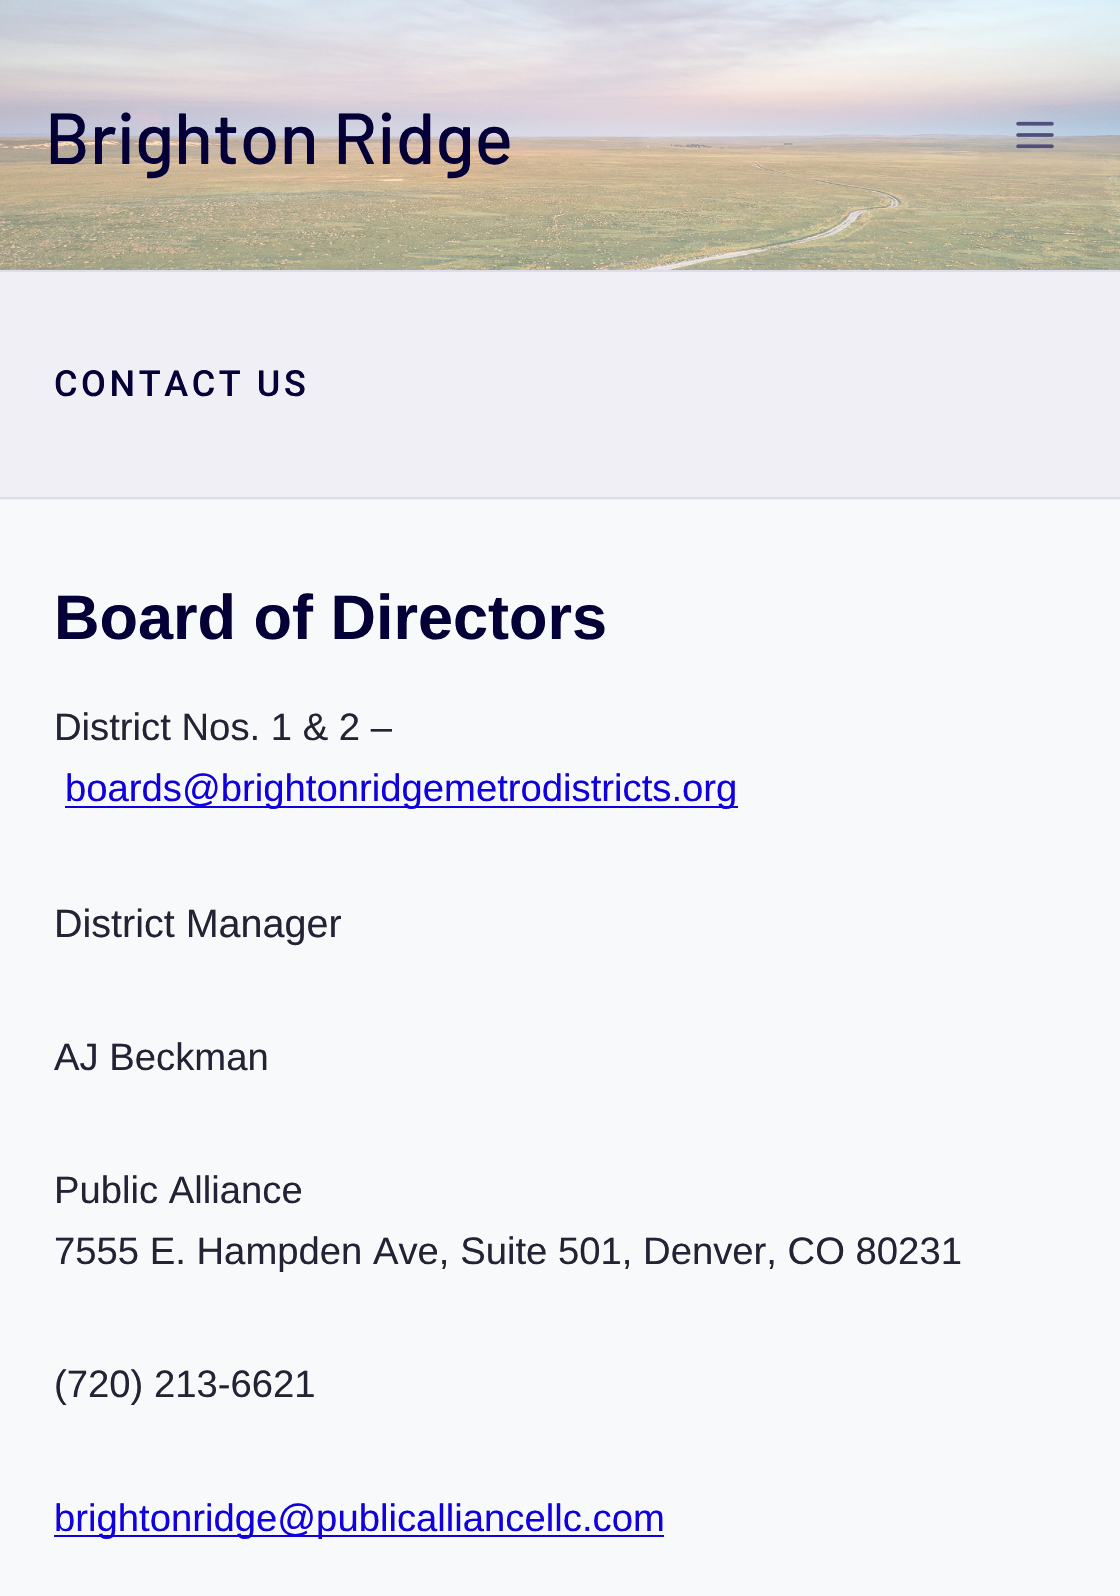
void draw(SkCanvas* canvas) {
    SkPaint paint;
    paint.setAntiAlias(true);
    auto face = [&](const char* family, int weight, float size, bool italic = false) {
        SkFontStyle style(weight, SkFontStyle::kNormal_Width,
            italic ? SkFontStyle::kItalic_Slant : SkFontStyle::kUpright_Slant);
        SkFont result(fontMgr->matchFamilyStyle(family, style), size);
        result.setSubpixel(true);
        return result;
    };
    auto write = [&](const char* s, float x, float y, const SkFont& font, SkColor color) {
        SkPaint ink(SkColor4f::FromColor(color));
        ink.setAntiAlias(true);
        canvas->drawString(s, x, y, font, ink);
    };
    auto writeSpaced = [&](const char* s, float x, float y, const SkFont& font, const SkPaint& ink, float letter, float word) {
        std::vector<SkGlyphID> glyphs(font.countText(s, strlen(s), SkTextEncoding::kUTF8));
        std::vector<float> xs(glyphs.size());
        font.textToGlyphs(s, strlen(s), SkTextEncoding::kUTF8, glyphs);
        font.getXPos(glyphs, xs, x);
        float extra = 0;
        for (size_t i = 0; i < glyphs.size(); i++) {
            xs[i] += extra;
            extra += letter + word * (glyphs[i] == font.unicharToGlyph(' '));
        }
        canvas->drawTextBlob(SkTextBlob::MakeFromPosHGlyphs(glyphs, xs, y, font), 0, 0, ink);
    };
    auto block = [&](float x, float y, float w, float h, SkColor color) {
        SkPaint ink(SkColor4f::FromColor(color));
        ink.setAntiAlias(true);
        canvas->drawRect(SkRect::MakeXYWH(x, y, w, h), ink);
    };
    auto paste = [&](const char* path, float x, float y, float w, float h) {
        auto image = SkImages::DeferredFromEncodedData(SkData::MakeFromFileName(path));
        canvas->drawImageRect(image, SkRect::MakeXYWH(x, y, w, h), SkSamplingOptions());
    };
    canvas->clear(SkColorSetRGB(248, 249, 250));
    paste("pic1.png", 0, 0, 1120, 270);
    auto kFont1 = face("Barlow", 500, 72);
    write("Brighton Ridge", 45, 164, kFont1, SkColorSetRGB(4, 0, 55));
    paste("pic2.png", 1016, 121, 38, 28);
    block(0, 272, 1120, 228, SkColorSetRGB(239, 239, 245));
    block(0, 270, 1120, 2, SkColorSetRGB(222, 221, 235));
    block(0, 497, 1120, 2, SkColorSetRGB(222, 221, 235));
    auto kFont2 = face("Roboto", 500, 36);
    paint.setColor(SkColorSetRGB(4, 0, 55));
    writeSpaced("CONTACT US", 54, 396, kFont2, paint, 3.6f, 0);
    auto kFont3 = face("Liberation Sans", 700, 63);
    write("Board of Directors", 54, 639, kFont3, SkColorSetRGB(4, 0, 55));
    auto kFont4 = face("Liberation Sans", 400, 38.25f);
    write("District Nos. 1 & 2 –", 54, 740, kFont4, SkColorSetRGB(36, 35, 53));
    block(65, 806, 673, 2, SkColorSetRGB(16, 0, 221));
    write("boards@brightonridgemetrodistricts.org", 65, 801, kFont4, SkColorSetRGB(16, 0, 221));
    auto kFont5 = face("Liberation Sans", 400, 39.5f);
    write("District Manager", 54, 937, kFont5, SkColorSetRGB(36, 35, 53));
    write("AJ Beckman", 54, 1070, kFont4, SkColorSetRGB(36, 35, 53));
    write("Public Alliance", 54, 1203, kFont4, SkColorSetRGB(36, 35, 53));
    write("7555 E. Hampden Ave, Suite 501, Denver, CO 80231", 54, 1264, kFont4, SkColorSetRGB(36, 35, 53));
    write("(720) 213-6621", 54, 1397, kFont4, SkColorSetRGB(36, 35, 53));
    block(54, 1535, 610, 2, SkColorSetRGB(16, 0, 221));
    write("brightonridge@publicalliancellc.com", 54, 1531, kFont4, SkColorSetRGB(16, 0, 221));
}
